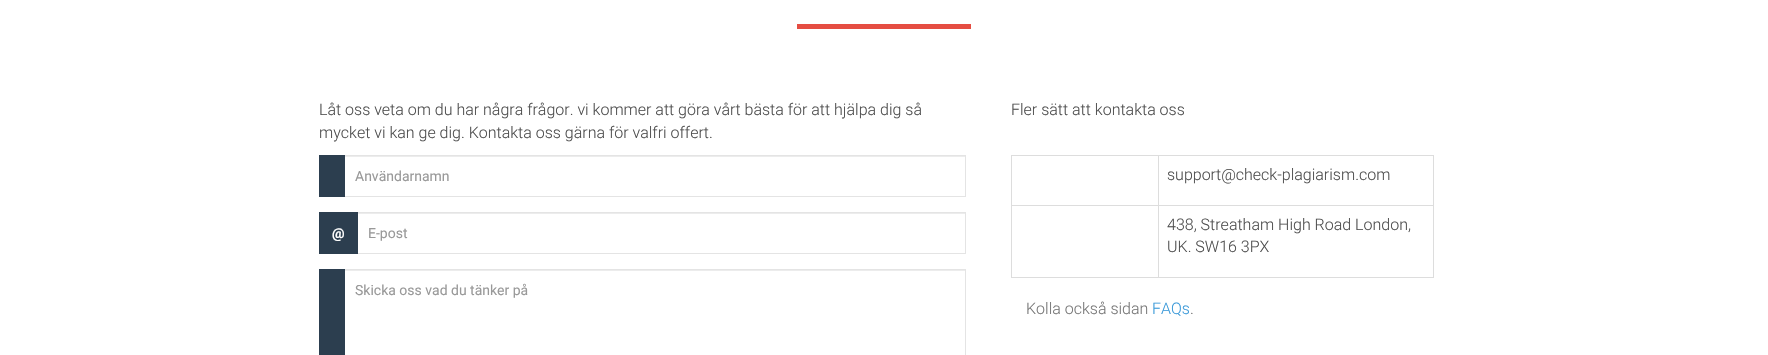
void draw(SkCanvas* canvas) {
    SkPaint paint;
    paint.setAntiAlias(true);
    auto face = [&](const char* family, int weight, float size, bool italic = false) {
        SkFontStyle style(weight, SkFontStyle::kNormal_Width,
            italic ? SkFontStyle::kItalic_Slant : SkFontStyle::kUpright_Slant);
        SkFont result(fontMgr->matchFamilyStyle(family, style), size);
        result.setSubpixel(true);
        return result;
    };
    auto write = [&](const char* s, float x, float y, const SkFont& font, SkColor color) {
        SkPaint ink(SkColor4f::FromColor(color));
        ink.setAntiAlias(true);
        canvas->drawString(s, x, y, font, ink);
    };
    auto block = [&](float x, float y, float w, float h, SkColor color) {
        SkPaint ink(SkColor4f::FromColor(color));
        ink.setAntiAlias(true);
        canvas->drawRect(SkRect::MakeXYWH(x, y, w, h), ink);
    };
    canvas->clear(SK_ColorWHITE);
    block(797, 24, 174, 5, SkColorSetRGB(229, 77, 66));
    auto kFont1 = face("Roboto", 300, 16);
    write("Låt oss veta om du har några frågor. vi kommer att göra vårt bästa för att hjälpa dig så", 319, 115, kFont1, SkColorSetRGB(79, 79, 79));
    write("mycket vi kan ge dig. Kontakta oss gärna för valfri offert.", 319, 138, kFont1, SkColorSetRGB(79, 79, 79));
    block(319, 155, 26, 42, SkColorSetRGB(44, 62, 79));
    block(345, 156, 620, 1, SkColorSetRGB(236, 236, 236));
    block(345, 155, 621, 1, SkColorSetRGB(228, 228, 228));
    block(965, 155, 1, 42, SkColorSetRGB(228, 228, 228));
    block(345, 196, 621, 1, SkColorSetRGB(228, 228, 228));
    auto kFont2 = face("Roboto", 400, 14);
    write("Användarnamn", 355, 181, kFont2, SkColorSetRGB(153, 153, 153));
    block(319, 212, 39, 42, SkColorSetRGB(44, 62, 79));
    auto kFont3 = face("Roboto", 700, 14);
    write("@", 332, 238, kFont3, SK_ColorWHITE);
    block(358, 213, 607, 1, SkColorSetRGB(236, 236, 236));
    block(358, 212, 608, 1, SkColorSetRGB(228, 228, 228));
    block(965, 212, 1, 42, SkColorSetRGB(228, 228, 228));
    block(358, 253, 608, 1, SkColorSetRGB(228, 228, 228));
    write("E-post", 368, 238, kFont2, SkColorSetRGB(153, 153, 153));
    block(319, 269, 26, 86, SkColorSetRGB(44, 62, 79));
    block(345, 270, 620, 1, SkColorSetRGB(236, 236, 236));
    block(345, 269, 621, 1, SkColorSetRGB(228, 228, 228));
    block(965, 269, 1, 86, SkColorSetRGB(228, 228, 228));
    write("Skicka oss vad du tänker på", 355, 295, kFont2, SkColorSetRGB(153, 153, 153));
    write("Fler sätt att kontakta oss", 1011, 115, kFont1, SkColorSetRGB(79, 79, 79));
    block(1011, 155, 423, 1, SkColorSetRGB(221, 221, 221));
    block(1433, 155, 1, 123, SkColorSetRGB(221, 221, 221));
    block(1011, 277, 423, 1, SkColorSetRGB(221, 221, 221));
    block(1011, 155, 1, 123, SkColorSetRGB(221, 221, 221));
    block(1158, 205, 276, 1, SkColorSetRGB(221, 221, 221));
    block(1158, 205, 1, 73, SkColorSetRGB(221, 221, 221));
    block(1011, 205, 148, 1, SkColorSetRGB(221, 221, 221));
    block(1158, 155, 1, 51, SkColorSetRGB(221, 221, 221));
    write("support@check-plagiarism.com", 1167, 180, kFont1, SkColorSetRGB(79, 79, 79));
    write("438, Streatham High Road London,", 1167, 230, kFont1, SkColorSetRGB(79, 79, 79));
    write("UK. SW16 3PX", 1167, 252, kFont1, SkColorSetRGB(79, 79, 79));
    write("Kolla också sidan", 1026, 314, kFont1, SkColorSetRGB(119, 119, 119));
    write("FAQs", 1152, 314, kFont1, SkColorSetRGB(58, 153, 217));
    write(".", 1190, 314, kFont1, SkColorSetRGB(119, 119, 119));
}
